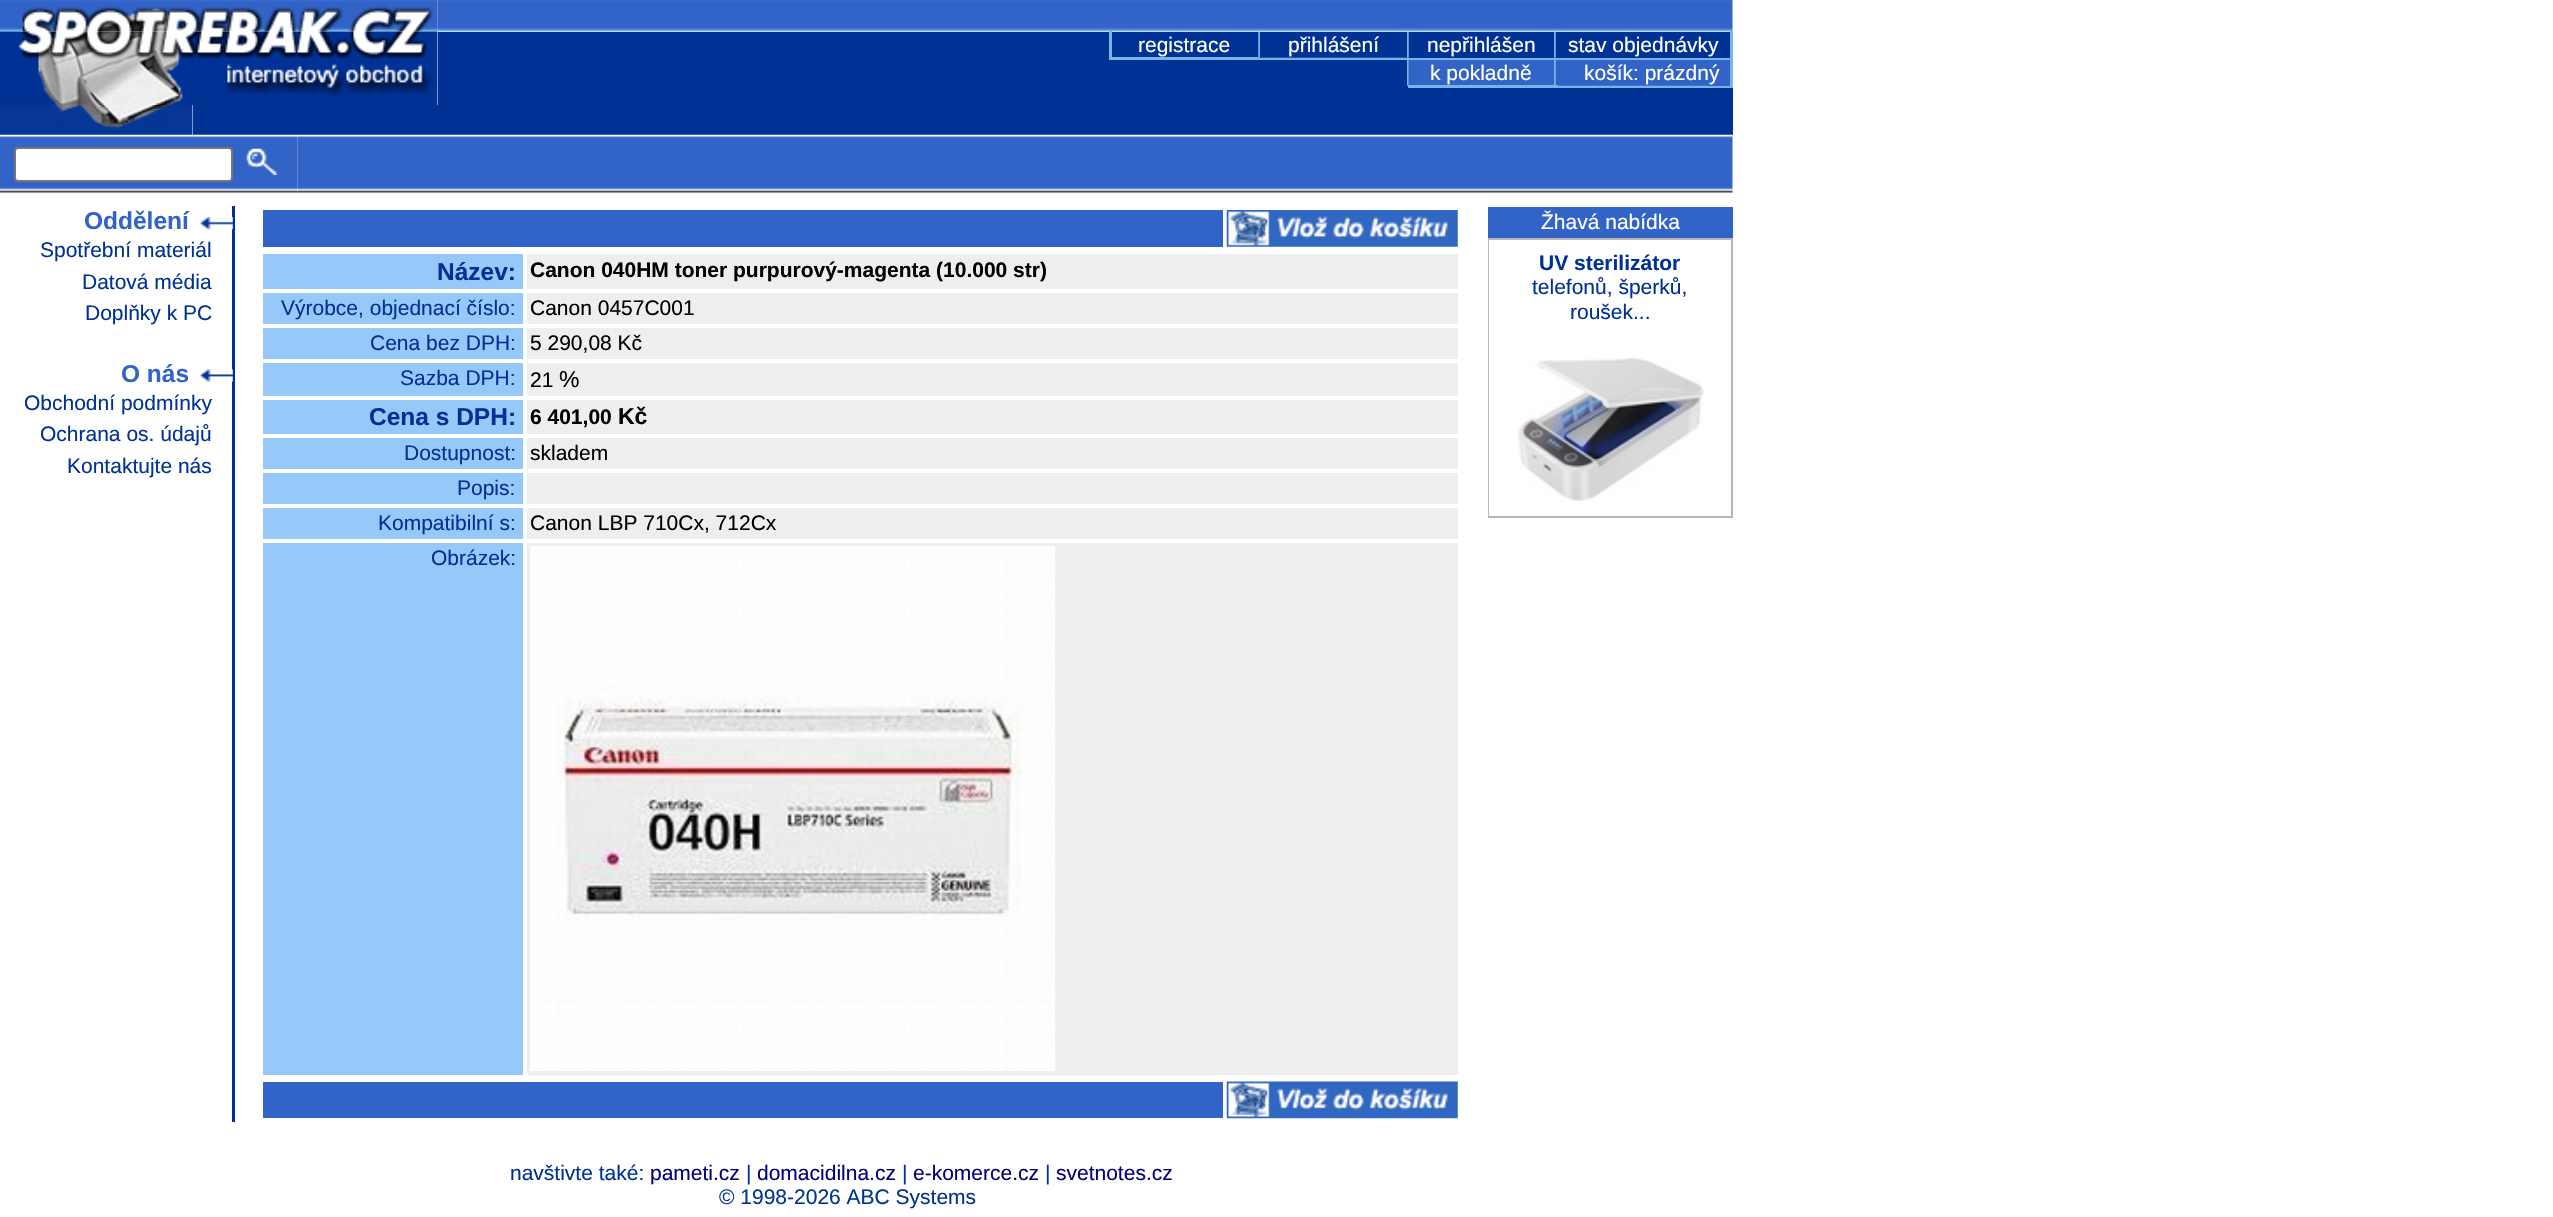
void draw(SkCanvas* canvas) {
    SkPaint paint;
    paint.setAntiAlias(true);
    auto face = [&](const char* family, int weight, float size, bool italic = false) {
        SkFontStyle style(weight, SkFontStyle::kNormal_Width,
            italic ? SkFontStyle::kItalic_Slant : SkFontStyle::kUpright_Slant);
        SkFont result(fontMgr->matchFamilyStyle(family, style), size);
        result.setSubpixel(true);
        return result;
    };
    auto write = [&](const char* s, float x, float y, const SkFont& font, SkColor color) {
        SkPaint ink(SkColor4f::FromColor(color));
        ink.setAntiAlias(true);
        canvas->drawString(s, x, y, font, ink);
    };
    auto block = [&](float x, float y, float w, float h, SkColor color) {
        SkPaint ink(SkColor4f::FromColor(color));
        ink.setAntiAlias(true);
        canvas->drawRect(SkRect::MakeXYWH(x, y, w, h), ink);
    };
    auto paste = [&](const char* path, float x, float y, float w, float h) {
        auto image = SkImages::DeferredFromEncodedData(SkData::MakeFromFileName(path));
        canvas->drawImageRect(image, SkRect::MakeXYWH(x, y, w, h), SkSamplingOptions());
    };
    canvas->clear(SK_ColorWHITE);
    paste("pic2.png", 437, 0, 1296, 32);
    paste("pic1.png", 0, 0, 438, 32);
    paste("pic3.png", 0, 31, 438, 74);
    block(438, 32, 1295, 73, SkColorSetRGB(0, 50, 150));
    block(1109, 31, 3, 27, SkColorSetRGB(120, 180, 230));
    auto kFont1 = face("Liberation Sans", 400, 21);
    write("registrace", 1138, 52, kFont1, SK_ColorWHITE);
    paste("pic4.png", 1258, 31, 2, 27);
    write("přihlášení", 1288, 52, kFont1, SK_ColorWHITE);
    paste("pic5.png", 1407, 31, 2, 27);
    write("nepřihlášen", 1427, 52, kFont1, SK_ColorWHITE);
    paste("pic5.png", 1554, 31, 2, 27);
    write("stav objednávky", 1568, 52, kFont1, SK_ColorWHITE);
    block(1730, 31, 3, 27, SkColorSetRGB(120, 180, 230));
    block(1109, 57, 149, 3, SkColorSetRGB(120, 180, 230));
    block(1258, 58, 475, 2, SkColorSetRGB(120, 180, 230));
    paste("pic6.png", 1258, 57, 149, 1);
    paste("pic7.png", 1407, 57, 2, 1);
    paste("pic7.png", 1554, 57, 2, 1);
    paste("pic8.png", 1407, 60, 2, 26);
    block(1409, 60, 145, 25, SkColorSetRGB(50, 100, 200));
    write("k pokladně", 1430, 80, kFont1, SK_ColorWHITE);
    block(1555, 60, 175, 26, SkColorSetRGB(50, 100, 200));
    paste("pic9.png", 1554, 60, 2, 25);
    block(1730, 60, 3, 26, SkColorSetRGB(120, 180, 230));
    write("košík: prázdný", 1584, 80, kFont1, SK_ColorWHITE);
    block(1408, 85, 150, 3, SkColorSetRGB(120, 180, 230));
    block(1558, 86, 175, 2, SkColorSetRGB(120, 180, 230));
    paste("pic10.png", 1558, 85, 149, 1);
    block(193, 105, 1540, 30, SkColorSetRGB(0, 50, 150));
    paste("pic12.png", 0, 134, 298, 59);
    paste("pic11.png", 0, 105, 193, 30);
    paint.setColor(SK_ColorWHITE);
    canvas->drawRoundRect(SkRect::MakeXYWH(15, 148, 217, 33), 3, 3, paint);
    paint.setStyle(SkPaint::kStroke_Style);
    paint.setStrokeWidth(2);
    paint.setColor(SkColorSetRGB(118, 118, 118));
    canvas->drawRoundRect(SkRect::MakeXYWH(15, 148, 217, 33), 3, 3, paint);
    paste("pic13.png", 246, 148, 31, 27);
    paste("pic14.png", 297, 134, 1436, 59);
    auto kFont2 = face("Liberation Sans", 700, 24.5f);
    write("Oddělení", 84, 229, kFont2, SkColorSetRGB(50, 100, 200));
    block(232, 206, 3, 916, SkColorSetRGB(0, 50, 150));
    paste("pic15.png", 199, 217, 34, 13);
    write("Spotřební materiál", 40, 257, kFont1, SkColorSetRGB(0, 50, 150));
    write("Datová média", 82, 289, kFont1, SkColorSetRGB(0, 50, 150));
    write("Doplňky k PC", 85, 320, kFont1, SkColorSetRGB(0, 50, 150));
    write("O nás", 121, 382, kFont2, SkColorSetRGB(50, 100, 200));
    paste("pic16.png", 199, 369, 34, 13);
    write("Obchodní podmínky", 24, 410, kFont1, SkColorSetRGB(0, 50, 150));
    write("Ochrana os. údajů", 40, 441, kFont1, SkColorSetRGB(0, 50, 150));
    write("Kontaktujte nás", 67, 473, kFont1, SkColorSetRGB(0, 50, 150));
    block(263, 210, 960, 37, SkColorSetRGB(50, 100, 200));
    paste("pic17.png", 1226, 210, 232, 37);
    block(263, 254, 260, 35, SkColorSetRGB(150, 200, 250));
    write("Název:", 437, 280, kFont2, SkColorSetRGB(0, 50, 150));
    block(527, 254, 931, 35, SkColorSetRGB(238, 238, 238));
    auto kFont3 = face("Liberation Sans", 700, 21);
    write("Canon 040HM toner purpurový-magenta (10.000 str)", 530, 277, kFont3, SK_ColorBLACK);
    block(263, 293, 260, 31, SkColorSetRGB(150, 200, 250));
    write("Výrobce, objednací číslo:", 281, 315, kFont1, SkColorSetRGB(0, 50, 150));
    block(527, 293, 931, 31, SkColorSetRGB(238, 238, 238));
    write("Canon 0457C001", 530, 315, kFont1, SK_ColorBLACK);
    block(263, 328, 260, 31, SkColorSetRGB(150, 200, 250));
    write("Cena bez DPH:", 370, 350, kFont1, SkColorSetRGB(0, 50, 150));
    block(527, 328, 931, 31, SkColorSetRGB(238, 238, 238));
    write("5 290,08 Kč", 530, 350, kFont1, SK_ColorBLACK);
    block(263, 363, 260, 33, SkColorSetRGB(150, 200, 250));
    write("Sazba DPH:", 400, 385, kFont1, SkColorSetRGB(0, 50, 150));
    block(527, 363, 931, 33, SkColorSetRGB(238, 238, 238));
    write("21", 530, 387, kFont1, SK_ColorBLACK);
    auto kFont4 = face("Liberation Sans", 400, 23);
    write("%", 559, 387, kFont4, SK_ColorBLACK);
    block(263, 400, 260, 34, SkColorSetRGB(150, 200, 250));
    write("Cena s DPH:", 369, 425, kFont2, SkColorSetRGB(0, 50, 150));
    block(527, 400, 931, 34, SkColorSetRGB(238, 238, 238));
    write("6 401,00", 530, 424, kFont3, SK_ColorBLACK);
    auto kFont5 = face("Liberation Sans", 700, 23);
    write("Kč", 618, 424, kFont5, SK_ColorBLACK);
    block(263, 438, 260, 31, SkColorSetRGB(150, 200, 250));
    write("Dostupnost:", 404, 460, kFont1, SkColorSetRGB(0, 50, 150));
    block(527, 438, 931, 31, SkColorSetRGB(238, 238, 238));
    write("skladem", 530, 460, kFont1, SK_ColorBLACK);
    block(263, 473, 260, 31, SkColorSetRGB(150, 200, 250));
    write("Popis:", 457, 495, kFont1, SkColorSetRGB(0, 50, 150));
    block(527, 473, 931, 31, SkColorSetRGB(238, 238, 238));
    block(263, 508, 260, 31, SkColorSetRGB(150, 200, 250));
    write("Kompatibilní s:", 378, 530, kFont1, SkColorSetRGB(0, 50, 150));
    block(527, 508, 931, 31, SkColorSetRGB(238, 238, 238));
    write("Canon LBP 710Cx, 712Cx", 530, 530, kFont1, SK_ColorBLACK);
    block(263, 543, 260, 532, SkColorSetRGB(150, 200, 250));
    write("Obrázek:", 431, 565, kFont1, SkColorSetRGB(0, 50, 150));
    block(527, 543, 931, 532, SkColorSetRGB(238, 238, 238));
    paste("pic18.png", 530, 546, 526, 525);
    block(263, 1082, 960, 36, SkColorSetRGB(50, 100, 200));
    paste("pic19.png", 1226, 1081, 232, 38);
    block(1488, 207, 245, 31, SkColorSetRGB(50, 100, 200));
    write("Žhavá nabídka", 1541, 229, kFont1, SK_ColorWHITE);
    block(1488, 238, 245, 280, SkColorSetRGB(184, 184, 184));
    block(1489, 240, 242, 276, SK_ColorWHITE);
    write("UV sterilizátor", 1539, 270, kFont3, SkColorSetRGB(0, 50, 150));
    write("telefonů, šperků,", 1532, 294, kFont1, SkColorSetRGB(0, 50, 150));
    write("roušek...", 1570, 319, kFont1, SkColorSetRGB(0, 50, 150));
    paste("pic20.png", 1517, 357, 188, 144);
    write("navštivte také:", 510, 1180, kFont1, SkColorSetRGB(0, 50, 150));
    write("pameti.cz", 650, 1180, kFont1, SkColorSetRGB(0, 0, 127));
    write("|", 746, 1180, kFont1, SkColorSetRGB(0, 50, 150));
    write("domacidilna.cz", 757, 1180, kFont1, SkColorSetRGB(0, 0, 127));
    write("|", 902, 1180, kFont1, SkColorSetRGB(0, 50, 150));
    write("e-komerce.cz", 913, 1180, kFont1, SkColorSetRGB(0, 0, 127));
    write("|", 1045, 1180, kFont1, SkColorSetRGB(0, 50, 150));
    write("svetnotes.cz", 1056, 1180, kFont1, SkColorSetRGB(0, 0, 127));
    write("© 1998-2026 ABC Systems", 719, 1204, kFont1, SkColorSetRGB(0, 50, 150));
}
